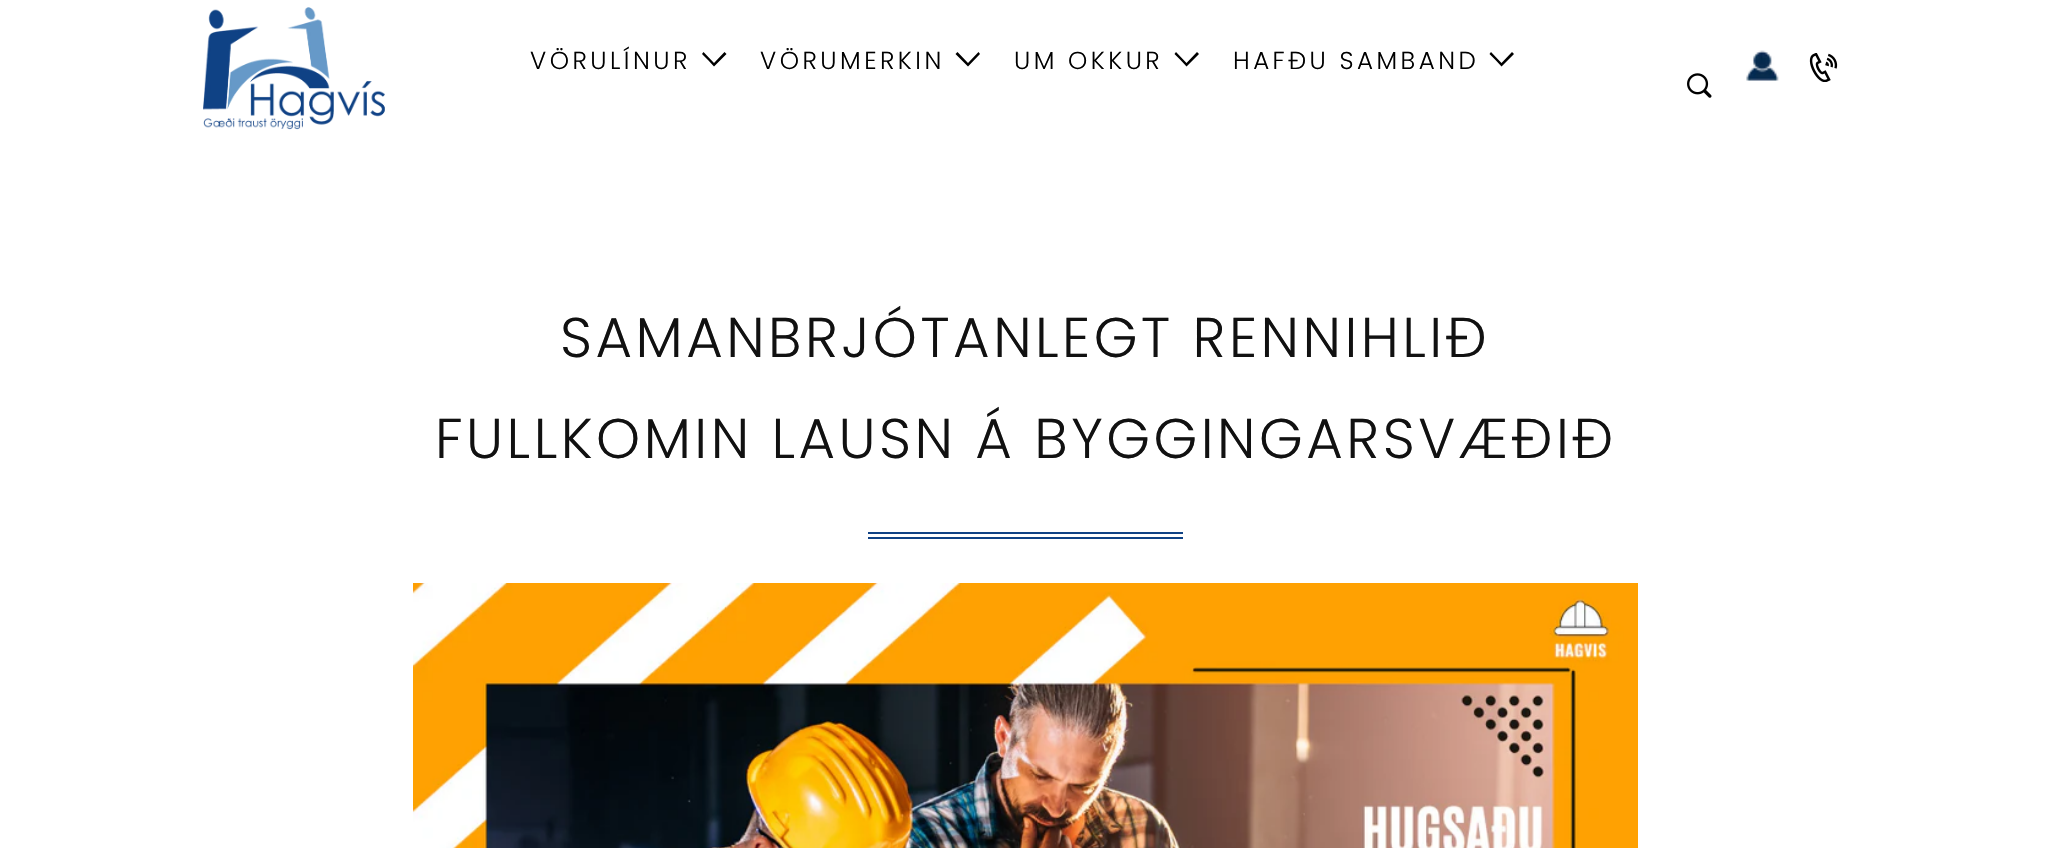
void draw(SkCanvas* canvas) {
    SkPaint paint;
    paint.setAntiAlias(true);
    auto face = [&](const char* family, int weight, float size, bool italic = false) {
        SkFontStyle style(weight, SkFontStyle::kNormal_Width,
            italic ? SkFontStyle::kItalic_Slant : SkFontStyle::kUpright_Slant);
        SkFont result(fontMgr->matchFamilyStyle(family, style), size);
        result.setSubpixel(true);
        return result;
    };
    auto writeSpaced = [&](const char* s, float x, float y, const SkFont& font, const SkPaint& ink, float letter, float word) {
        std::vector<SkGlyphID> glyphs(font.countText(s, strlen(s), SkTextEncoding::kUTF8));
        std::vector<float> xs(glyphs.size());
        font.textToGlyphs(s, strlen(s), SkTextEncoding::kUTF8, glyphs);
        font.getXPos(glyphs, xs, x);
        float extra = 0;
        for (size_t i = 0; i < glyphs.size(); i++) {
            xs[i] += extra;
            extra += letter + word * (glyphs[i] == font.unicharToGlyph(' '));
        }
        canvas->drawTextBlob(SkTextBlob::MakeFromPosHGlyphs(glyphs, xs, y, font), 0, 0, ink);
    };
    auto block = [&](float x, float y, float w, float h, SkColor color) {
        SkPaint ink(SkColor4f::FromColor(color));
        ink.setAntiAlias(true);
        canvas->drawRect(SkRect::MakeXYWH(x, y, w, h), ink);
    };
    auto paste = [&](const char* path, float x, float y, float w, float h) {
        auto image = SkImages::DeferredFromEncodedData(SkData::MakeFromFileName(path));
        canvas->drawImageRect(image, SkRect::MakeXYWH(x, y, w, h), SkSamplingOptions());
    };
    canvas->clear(SK_ColorWHITE);
    paste("pic1.png", 203, 7, 182, 123);
    auto kFont1 = face("Poppins", 300, 24.5f);
    paint.setColor(SK_ColorBLACK);
    writeSpaced("VÖRULÍNUR", 530, 69, kFont1, paint, 3.5f, 0);
    canvas->drawPath(SkPathBuilder().moveTo(708, 60).lineTo(702, 54).lineTo(703.5f, 52).lineTo(714, 63).lineTo(724.5f, 52).lineTo(726.5f, 54).lineTo(714, 66.5f).close().detach(), paint);
    writeSpaced("VÖRUMERKIN", 760, 69, kFont1, paint, 3.5f, 0);
    canvas->drawPath(SkPathBuilder().moveTo(961.5f, 60).lineTo(955.5f, 54).lineTo(957.5f, 52).lineTo(968, 63).lineTo(978.5f, 52).lineTo(980, 54).lineTo(968, 66.5f).close().detach(), paint);
    writeSpaced("UM OKKUR", 1014, 69, kFont1, paint, 3.5f, 0);
    canvas->drawPath(SkPathBuilder().moveTo(1180.5f, 60).lineTo(1174.5f, 54).lineTo(1176, 52).lineTo(1186.5f, 63).lineTo(1197, 52).lineTo(1199, 54).lineTo(1186.5f, 66.5f).close().detach(), paint);
    writeSpaced("HAFÐU SAMBAND", 1233, 69, kFont1, paint, 3.5f, 0);
    canvas->drawPath(SkPathBuilder().moveTo(1495.5f, 60).lineTo(1489.5f, 54).lineTo(1491, 52).lineTo(1501.5f, 63).lineTo(1512, 52).lineTo(1514, 54).lineTo(1501.5f, 66.5f).close().detach(), paint);
    paste("pic2.png", 1746, 50, 33, 31);
    paste("pic3.png", 1809, 53, 29, 29);
    paste("pic4.png", 1687, 73, 25, 25);
    auto kFont2 = face("Poppins", 300, 56);
    paint.setColor(SkColorSetRGB(17, 17, 17));
    writeSpaced("SAMANBRJÓTANLEGT RENNIHLIÐ", 560, 357, kFont2, paint, 3.5f, 0);
    writeSpaced("FULLKOMIN LAUSN Á BYGGINGARSVÆÐIÐ", 435, 458, kFont2, paint, 3.5f, 0);
    block(868, 532, 315, 2, SkColorSetRGB(16, 66, 133));
    block(868, 537, 315, 2, SkColorSetRGB(16, 66, 133));
    paste("pic5.png", 413, 583, 1225, 265);
}
